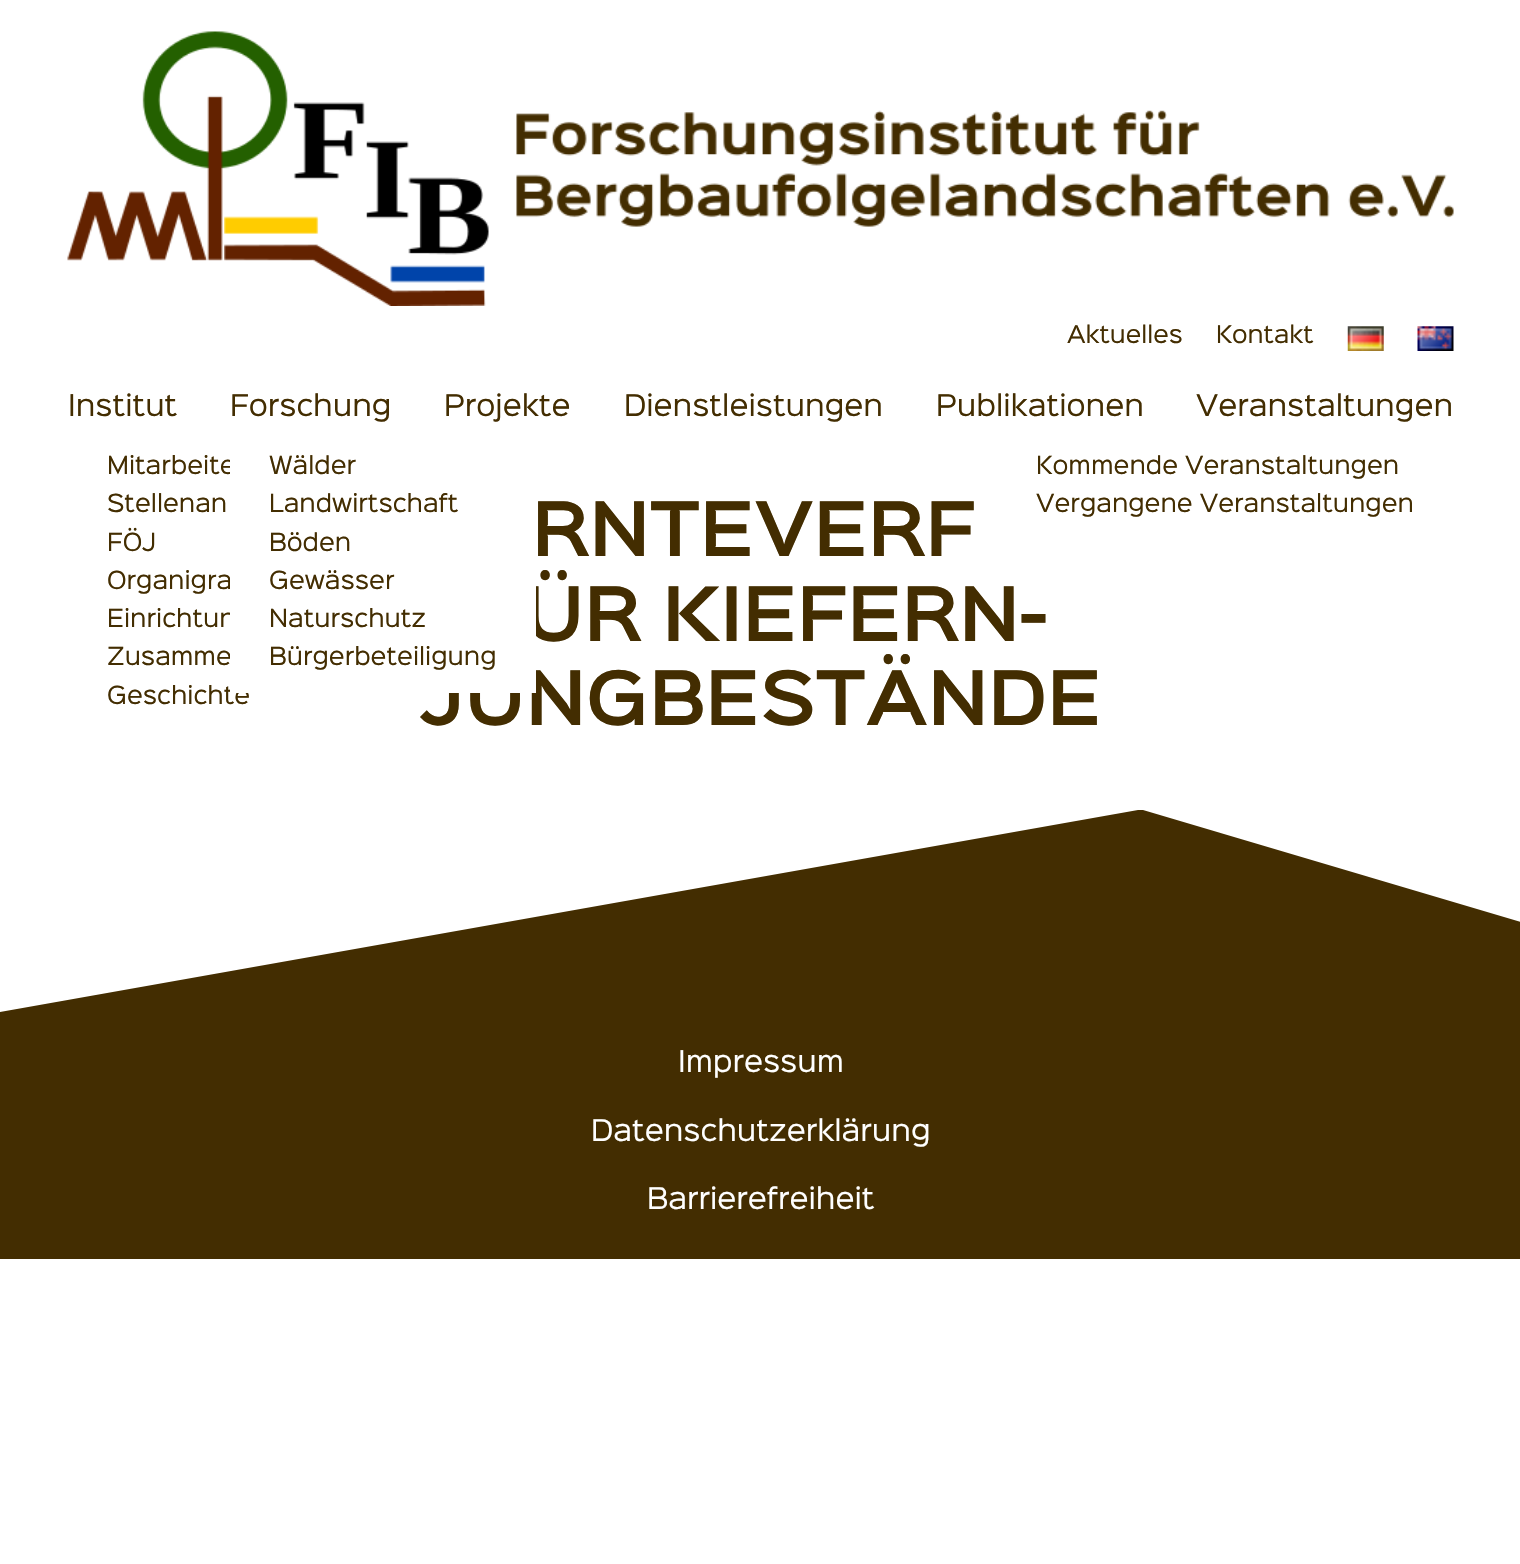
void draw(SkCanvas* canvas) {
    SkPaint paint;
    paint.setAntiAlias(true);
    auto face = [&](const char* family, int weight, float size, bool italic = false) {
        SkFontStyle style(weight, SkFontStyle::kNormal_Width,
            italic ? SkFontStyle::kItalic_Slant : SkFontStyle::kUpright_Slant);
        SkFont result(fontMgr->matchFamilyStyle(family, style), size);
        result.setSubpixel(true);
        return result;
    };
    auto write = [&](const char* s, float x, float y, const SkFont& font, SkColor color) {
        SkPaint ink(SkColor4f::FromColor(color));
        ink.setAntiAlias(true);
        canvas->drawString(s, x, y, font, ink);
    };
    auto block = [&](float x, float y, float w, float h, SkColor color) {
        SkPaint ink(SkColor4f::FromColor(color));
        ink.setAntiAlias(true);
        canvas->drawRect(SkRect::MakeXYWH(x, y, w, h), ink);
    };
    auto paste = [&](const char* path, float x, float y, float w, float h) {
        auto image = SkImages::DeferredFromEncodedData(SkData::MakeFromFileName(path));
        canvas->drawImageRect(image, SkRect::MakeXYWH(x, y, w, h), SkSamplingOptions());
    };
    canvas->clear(SK_ColorWHITE);
    paste("pic1.png", 67, 31, 1387, 275);
    auto kFont1 = face("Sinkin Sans", 400, 22);
    write("Aktuelles", 1067, 343, kFont1, SkColorSetRGB(67, 45, 1));
    write("Kontakt", 1216, 343, kFont1, SkColorSetRGB(67, 45, 1));
    paste("pic2.png", 1347, 326, 37, 25);
    paste("pic3.png", 1417, 326, 37, 25);
    auto kFont2 = face("Sinkin Sans", 400, 27);
    write("Institut", 68, 416, kFont2, SkColorSetRGB(67, 45, 1));
    auto kFont3 = face("Sinkin Sans", 400, 22.5f);
    write("Mitarbeite", 107, 474, kFont3, SkColorSetRGB(67, 45, 1));
    write("Stellenan", 107, 512, kFont3, SkColorSetRGB(67, 45, 1));
    write("FÖJ", 107, 551, kFont3, SkColorSetRGB(67, 45, 1));
    write("Organigra", 107, 589, kFont3, SkColorSetRGB(67, 45, 1));
    write("Einrichtun", 107, 627, kFont3, SkColorSetRGB(67, 45, 1));
    write("Zusamme", 107, 665, kFont3, SkColorSetRGB(67, 45, 1));
    write("Geschichte", 107, 704, kFont3, SkColorSetRGB(67, 45, 1));
    write("Forschung", 230, 416, kFont2, SkColorSetRGB(67, 45, 1));
    auto kFont4 = face("Sinkin Sans", 600, 67.5f);
    write("ÜR KIEFERN-", 523, 641, kFont4, SkColorSetRGB(67, 45, 1));
    write("JUNGBESTÄNDE", 420, 725, kFont4, SkColorSetRGB(67, 45, 1));
    block(230, 460, 306, 233, SK_ColorWHITE);
    write("Wälder", 269, 474, kFont3, SkColorSetRGB(67, 45, 1));
    write("Landwirtschaft", 269, 512, kFont3, SkColorSetRGB(67, 45, 1));
    write("Böden", 269, 551, kFont3, SkColorSetRGB(67, 45, 1));
    write("Gewässer", 269, 589, kFont3, SkColorSetRGB(67, 45, 1));
    write("Naturschutz", 269, 627, kFont3, SkColorSetRGB(67, 45, 1));
    write("Bürgerbeteiligung", 269, 665, kFont3, SkColorSetRGB(67, 45, 1));
    write("Projekte", 444, 416, kFont2, SkColorSetRGB(67, 45, 1));
    write("Dienstleistungen", 624, 416, kFont2, SkColorSetRGB(67, 45, 1));
    write("Publikationen", 936, 416, kFont2, SkColorSetRGB(67, 45, 1));
    write("Veranstaltungen", 1196, 416, kFont2, SkColorSetRGB(67, 45, 1));
    write("Kommende Veranstaltungen", 1036, 474, kFont3, SkColorSetRGB(67, 45, 1));
    write("Vergangene Veranstaltungen", 1036, 512, kFont3, SkColorSetRGB(67, 45, 1));
    write("RNTEVERF", 532, 556, kFont4, SkColorSetRGB(67, 45, 1));
    paint.setColor(SkColorSetRGB(67, 45, 1));
    canvas->drawPath(SkPathBuilder().moveTo(0, 1012).lineTo(0, 1259).lineTo(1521, 1259).lineTo(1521, 922).lineTo(1143, 810).lineTo(1138, 810).close().detach(), paint);
    write("Impressum", 678, 1072, kFont2, SK_ColorWHITE);
    write("Datenschutzerklärung", 591, 1141, kFont2, SK_ColorWHITE);
    write("Barrierefreiheit", 647, 1209, kFont2, SK_ColorWHITE);
}
